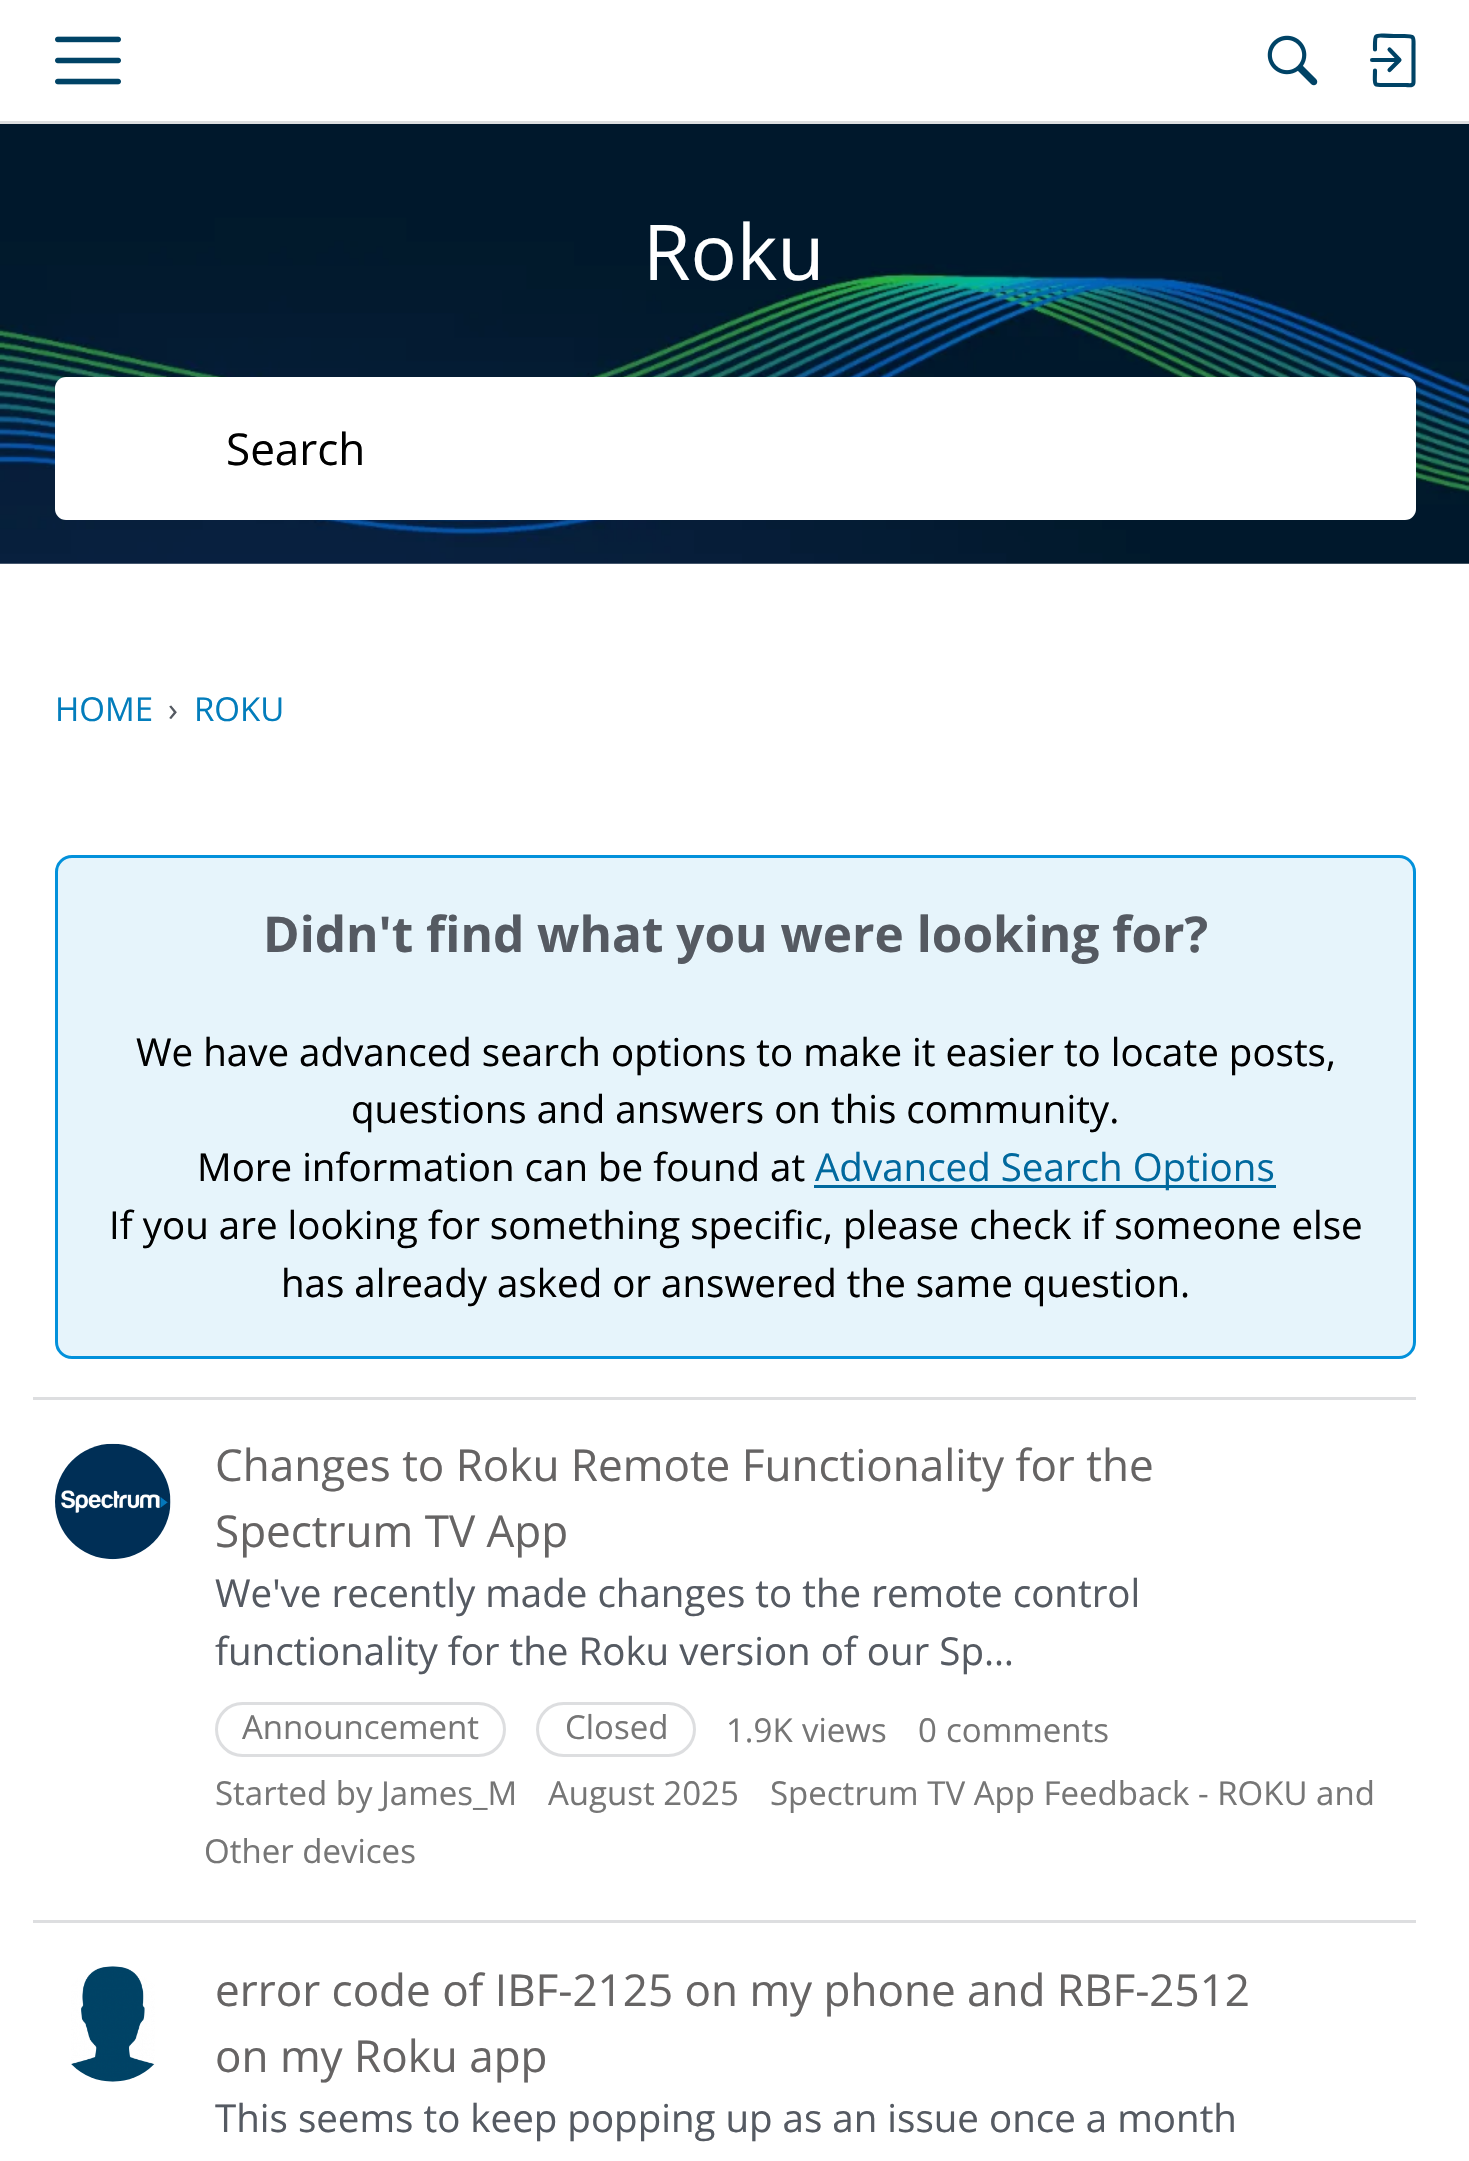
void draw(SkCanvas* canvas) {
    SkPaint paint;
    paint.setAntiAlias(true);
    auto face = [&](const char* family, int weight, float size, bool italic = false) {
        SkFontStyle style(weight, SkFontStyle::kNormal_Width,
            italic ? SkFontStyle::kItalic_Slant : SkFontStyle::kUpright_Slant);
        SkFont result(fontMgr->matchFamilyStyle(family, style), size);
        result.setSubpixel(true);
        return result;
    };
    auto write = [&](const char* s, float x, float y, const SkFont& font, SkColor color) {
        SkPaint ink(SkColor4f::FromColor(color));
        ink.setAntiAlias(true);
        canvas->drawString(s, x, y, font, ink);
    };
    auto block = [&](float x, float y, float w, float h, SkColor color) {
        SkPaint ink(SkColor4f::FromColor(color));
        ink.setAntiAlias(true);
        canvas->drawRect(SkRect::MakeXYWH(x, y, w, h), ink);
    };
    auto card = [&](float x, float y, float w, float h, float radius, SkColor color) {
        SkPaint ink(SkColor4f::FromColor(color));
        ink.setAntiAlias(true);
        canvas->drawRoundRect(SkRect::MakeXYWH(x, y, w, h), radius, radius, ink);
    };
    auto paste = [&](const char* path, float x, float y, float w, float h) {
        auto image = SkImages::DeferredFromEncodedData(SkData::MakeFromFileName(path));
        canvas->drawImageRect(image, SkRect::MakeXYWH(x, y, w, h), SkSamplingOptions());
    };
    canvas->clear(SK_ColorWHITE);
    block(0, 121, 1469, 3, SkColorSetRGB(221, 222, 224));
    paste("pic1.png", 55, 36, 66, 49);
    paste("pic2.png", 1267, 35, 51, 51);
    paint.setStyle(SkPaint::kStroke_Style);
    paint.setStrokeWidth(4.1f);
    paint.setStrokeCap(SkPaint::kRound_Cap);
    paint.setStrokeJoin(SkPaint::kRound_Join);
    paint.setColor(SkColorSetRGB(0, 67, 102));
    canvas->drawPath(SkPathBuilder().moveTo(1389.5f, 70).lineTo(1399.5f, 60).lineTo(1389.5f, 49.5f).detach(), paint);
    paint.setStrokeJoin(SkPaint::kMiter_Join);
    canvas->drawPath(SkPathBuilder().moveTo(1398.5f, 60).lineTo(1372, 60).detach(), paint);
    paint.setStrokeJoin(SkPaint::kRound_Join);
    canvas->drawPath(SkPathBuilder().moveTo(1375, 49.5f).cubicTo(1375, 31.5f, 1373.5f, 36, 1394, 36).lineTo(1404.5f, 36).cubicTo(1415, 36, 1413.5f, 37, 1413.5f, 47.5f).lineTo(1413.5f, 82).cubicTo(1413.5f, 86.5f, 1409, 85, 1405.5f, 85).lineTo(1389, 85).cubicTo(1372, 85, 1375, 87, 1375, 70.5f).detach(), paint);
    paste("pic3.png", 0, 124, 1469, 440);
    auto kFont1 = face("Open Sans", 400, 77);
    write("Roku", 643, 280, kFont1, SK_ColorWHITE);
    card(55, 377, 1361, 143, 11, SK_ColorWHITE);
    auto kFont2 = face("Open Sans", 400, 44);
    write("Search", 226, 465, kFont2, SK_ColorBLACK);
    auto kFont3 = face("Open Sans", 400, 33);
    write("HOME", 55, 721, kFont3, SkColorSetRGB(3, 125, 188));
    write("›", 168, 721, kFont3, SkColorSetRGB(85, 90, 98));
    write("ROKU", 194, 721, kFont3, SkColorSetRGB(3, 125, 188));
    paint.setStyle(SkPaint::kFill_Style);
    paint.setColor(SkColorSetRGB(230, 244, 251));
    canvas->drawRoundRect(SkRect::MakeXYWH(56.5f, 856.5f, 1358, 501), 15.5f, 15.5f, paint);
    paint.setStyle(SkPaint::kStroke_Style);
    paint.setStrokeWidth(3);
    paint.setStrokeCap(SkPaint::kButt_Cap);
    paint.setStrokeJoin(SkPaint::kMiter_Join);
    paint.setColor(SkColorSetRGB(2, 145, 219));
    canvas->drawRoundRect(SkRect::MakeXYWH(56.5f, 856.5f, 1358, 501), 15.5f, 15.5f, paint);
    auto kFont4 = face("Open Sans", 700, 49.5f);
    write("Didn't find what you were looking for?", 263, 952, kFont4, SkColorSetRGB(85, 90, 98));
    auto kFont5 = face("Open Sans", 400, 38.5f);
    write("We have advanced search options to make it easier to locate posts,", 136, 1066, kFont5, SK_ColorBLACK);
    write("questions and answers on this community.", 351, 1123, kFont5, SK_ColorBLACK);
    write("More information can be found at", 197, 1181, kFont5, SK_ColorBLACK);
    block(814, 1185, 462, 3, SkColorSetRGB(1, 105, 158));
    write("Advanced Search Options", 815, 1181, kFont5, SkColorSetRGB(1, 105, 158));
    write("If you are looking for something specific, please check if someone else", 109, 1239, kFont5, SK_ColorBLACK);
    write("has already asked or answered the same question.", 281, 1297, kFont5, SK_ColorBLACK);
    block(33, 1397, 1383, 3, SkColorSetRGB(221, 222, 224));
    paste("pic4.png", 55, 1443, 116, 117);
    write("Changes to Roku Remote Functionality for the", 215, 1481, kFont2, SkColorSetRGB(102, 100, 100));
    write("Spectrum TV App", 215, 1547, kFont2, SkColorSetRGB(102, 100, 100));
    write("We've recently made changes to the remote control", 215, 1607, kFont5, SkColorSetRGB(85, 90, 98));
    write("functionality for the Roku version of our Sp…", 215, 1665, kFont5, SkColorSetRGB(85, 90, 98));
    paint.setColor(SkColorSetRGB(221, 222, 224));
    canvas->drawRoundRect(SkRect::MakeXYWH(216.5f, 1703.5f, 288, 52), 26, 26, paint);
    write("Announcement", 242, 1739, kFont3, SkColorSetRGB(118, 118, 118));
    canvas->drawRoundRect(SkRect::MakeXYWH(537.5f, 1703.5f, 157, 52), 26, 26, paint);
    write("Closed", 565, 1739, kFont3, SkColorSetRGB(118, 118, 118));
    write("1.9K", 726, 1742, kFont3, SkColorSetRGB(118, 118, 118));
    write("views", 802, 1742, kFont3, SkColorSetRGB(118, 118, 118));
    write("0", 918, 1742, kFont3, SkColorSetRGB(118, 118, 118));
    write("comments", 946, 1742, kFont3, SkColorSetRGB(118, 118, 118));
    write("Started by", 215, 1805, kFont3, SkColorSetRGB(118, 118, 118));
    write("James_M", 381, 1805, kFont3, SkColorSetRGB(118, 118, 118));
    write("August 2025", 548, 1805, kFont3, SkColorSetRGB(118, 118, 118));
    write("Spectrum TV App Feedback - ROKU and", 770, 1805, kFont3, SkColorSetRGB(118, 118, 118));
    write("Other devices", 204, 1863, kFont3, SkColorSetRGB(118, 118, 118));
    block(33, 1920, 1383, 3, SkColorSetRGB(221, 222, 224));
    paste("pic5.png", 71, 1966, 84, 116);
    write("error code of IBF-2125 on my phone and RBF-2512", 215, 2006, kFont2, SkColorSetRGB(102, 100, 100));
    write("on my Roku app", 215, 2072, kFont2, SkColorSetRGB(102, 100, 100));
    write("This seems to keep popping up as an issue once a month", 215, 2132, kFont5, SkColorSetRGB(85, 90, 98));
}
